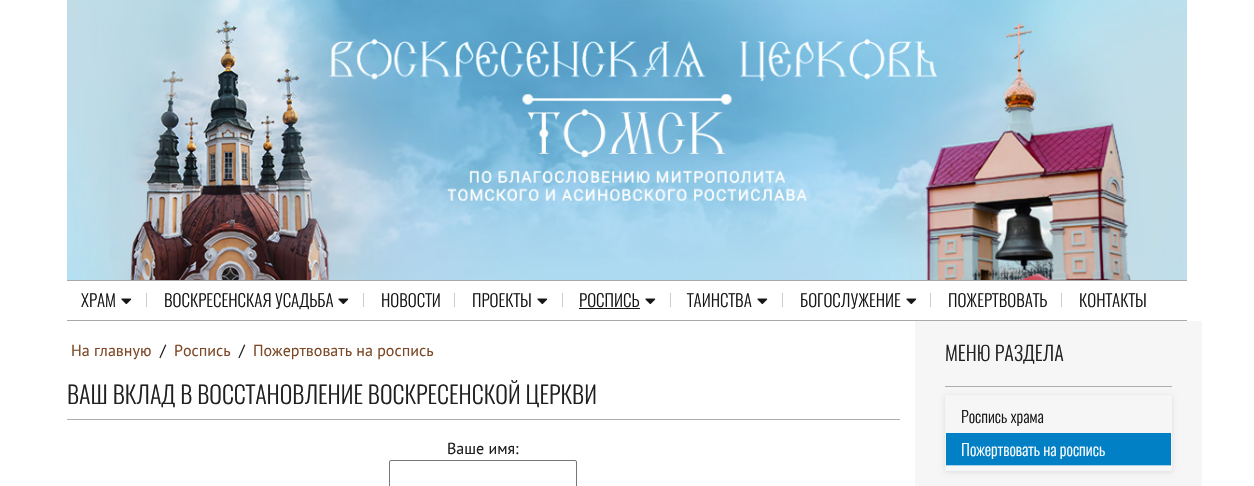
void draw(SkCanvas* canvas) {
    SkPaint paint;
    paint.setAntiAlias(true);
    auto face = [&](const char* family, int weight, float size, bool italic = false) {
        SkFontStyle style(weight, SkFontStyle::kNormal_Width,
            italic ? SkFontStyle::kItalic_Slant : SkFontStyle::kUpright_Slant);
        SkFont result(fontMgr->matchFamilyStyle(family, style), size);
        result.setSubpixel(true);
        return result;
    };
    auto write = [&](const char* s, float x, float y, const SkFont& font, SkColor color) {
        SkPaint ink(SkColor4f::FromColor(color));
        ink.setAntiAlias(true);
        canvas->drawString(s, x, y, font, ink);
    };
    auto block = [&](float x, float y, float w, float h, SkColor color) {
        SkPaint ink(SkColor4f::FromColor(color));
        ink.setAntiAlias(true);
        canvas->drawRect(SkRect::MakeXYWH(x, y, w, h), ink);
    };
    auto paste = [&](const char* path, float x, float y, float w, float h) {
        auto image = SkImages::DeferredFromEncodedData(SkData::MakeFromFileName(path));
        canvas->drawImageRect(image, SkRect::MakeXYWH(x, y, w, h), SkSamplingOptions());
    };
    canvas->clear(SK_ColorWHITE);
    block(67, 280, 1120, 1, SkColorSetRGB(170, 170, 170));
    paste("pic1.png", 67, 0, 1120, 280);
    block(67, 320, 1120, 1, SkColorSetRGB(170, 170, 170));
    auto kFont1 = face("Oswald", 300, 17);
    write("ХРАМ", 81, 307, kFont1, SkColorSetRGB(22, 22, 22));
    paste("pic2.png", 121, 298, 11, 7);
    block(146, 293, 1, 14, SkColorSetRGB(204, 204, 204));
    write("ВОСКРЕСЕНСКАЯ УСАДЬБА", 164, 307, kFont1, SkColorSetRGB(22, 22, 22));
    paste("pic2.png", 338, 298, 11, 7);
    block(363, 293, 1, 14, SkColorSetRGB(204, 204, 204));
    write("НОВОСТИ", 381, 307, kFont1, SkColorSetRGB(22, 22, 22));
    block(454, 293, 1, 14, SkColorSetRGB(204, 204, 204));
    write("ПРОЕКТЫ", 472, 307, kFont1, SkColorSetRGB(22, 22, 22));
    paste("pic2.png", 537, 298, 11, 7);
    block(562, 293, 1, 14, SkColorSetRGB(204, 204, 204));
    write("РОСПИСЬ", 579, 307, kFont1, SkColorSetRGB(22, 22, 22));
    block(579, 308, 61, 1, SkColorSetRGB(22, 22, 22));
    paste("pic2.png", 645, 298, 11, 7);
    block(670, 293, 1, 14, SkColorSetRGB(204, 204, 204));
    write("ТАИНСТВА", 687, 307, kFont1, SkColorSetRGB(22, 22, 22));
    paste("pic2.png", 757, 298, 11, 7);
    block(782, 293, 1, 14, SkColorSetRGB(204, 204, 204));
    write("БОГОСЛУЖЕНИЕ", 800, 307, kFont1, SkColorSetRGB(22, 22, 22));
    paste("pic2.png", 906, 298, 11, 7);
    block(930, 293, 1, 14, SkColorSetRGB(204, 204, 204));
    write("ПОЖЕРТВОВАТЬ", 948, 307, kFont1, SkColorSetRGB(22, 22, 22));
    block(1061, 293, 1, 14, SkColorSetRGB(204, 204, 204));
    write("КОНТАКТЫ", 1079, 307, kFont1, SkColorSetRGB(22, 22, 22));
    auto kFont2 = face("PT Sans", 400, 16);
    write("На главную", 71, 356, kFont2, SkColorSetRGB(125, 73, 39));
    write("/", 160, 356, kFont2, SkColorSetRGB(32, 32, 32));
    write("Роспись", 174, 356, kFont2, SkColorSetRGB(125, 73, 39));
    write("/", 239, 356, kFont2, SkColorSetRGB(32, 32, 32));
    write("Пожертвовать на роспись", 253, 356, kFont2, SkColorSetRGB(125, 73, 39));
    block(67, 419, 833, 1, SkColorSetRGB(174, 174, 174));
    auto kFont3 = face("Oswald", 300, 24);
    write("ВАШ ВКЛАД В ВОССТАНОВЛЕНИЕ ВОСКРЕСЕНСКОЙ ЦЕРКВИ", 67, 404, kFont3, SkColorSetRGB(32, 32, 32));
    write("Ваше имя:", 447, 454, kFont2, SkColorSetRGB(32, 32, 32));
    paint.setStyle(SkPaint::kStroke_Style);
    paint.setStrokeWidth(1);
    paint.setColor(SkColorSetRGB(118, 118, 118));
    canvas->drawRoundRect(SkRect::MakeXYWH(389.5f, 460.5f, 187, 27), 1.5f, 1.5f, paint);
    block(915, 321, 287, 165, SkColorSetRGB(246, 246, 246));
    block(945, 386, 227, 1, SkColorSetRGB(174, 174, 174));
    auto kFont4 = face("Oswald", 300, 20);
    write("МЕНЮ РАЗДЕЛА", 945, 361, kFont4, SkColorSetRGB(32, 32, 32));
    canvas->save();
    canvas->clipPath(SkPathBuilder(SkPathFillType::kEvenOdd).moveTo(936, 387).lineTo(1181, 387).lineTo(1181, 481).lineTo(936, 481).close().moveTo(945, 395).lineTo(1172, 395).lineTo(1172, 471).lineTo(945, 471).close().detach(), true);
    paint.setStyle(SkPaint::kFill_Style);
    paint.setColor(SkColorSetARGB(26, 0, 0, 0));
    paint.setMaskFilter(SkMaskFilter::MakeBlur(kNormal_SkBlurStyle, 2.5f));
    canvas->drawRect(SkRect::MakeXYWH(945, 396, 227, 76), paint);
    paint.setMaskFilter(nullptr);
    canvas->restore();
    paint.setStyle(SkPaint::kStroke_Style);
    paint.setColor(SkColorSetRGB(243, 245, 247));
    canvas->drawRect(SkRect::MakeXYWH(945.5f, 395.5f, 226, 75), paint);
    block(946, 432, 225, 1, SkColorSetRGB(243, 245, 247));
    auto kFont5 = face("Oswald", 300, 16);
    write("Роспись храма", 961, 423, kFont5, SkColorSetRGB(22, 22, 22));
    block(946, 433, 225, 32, SkColorSetRGB(2, 128, 197));
    block(946, 465, 225, 1, SkColorSetRGB(170, 209, 233));
    write("Пожертвовать на роспись", 961, 456, kFont5, SK_ColorWHITE);
}
